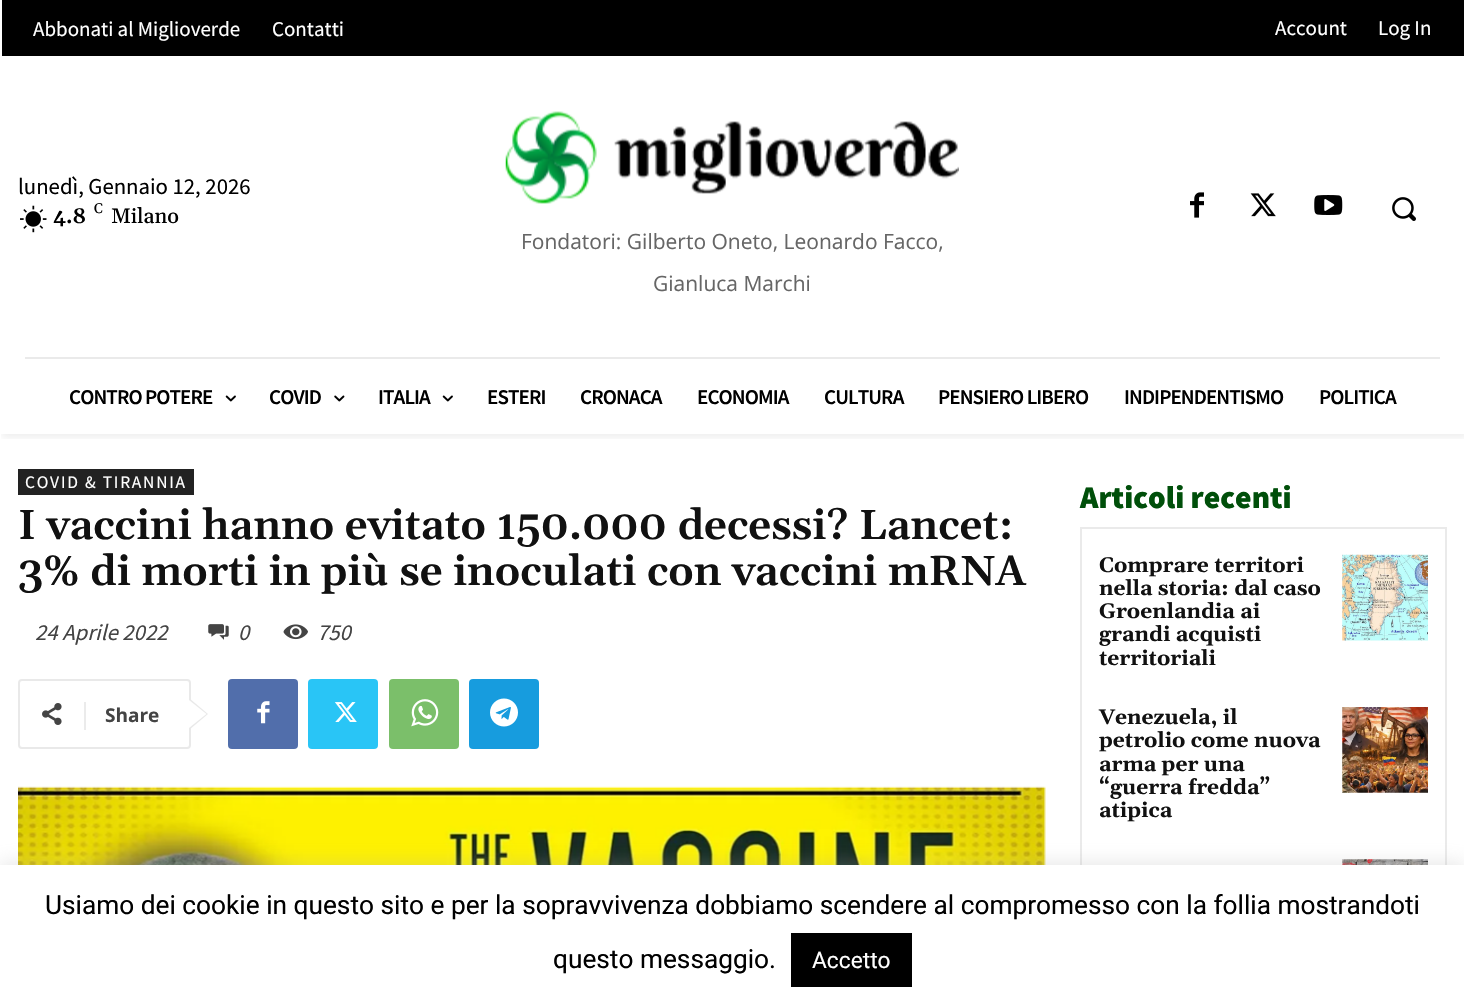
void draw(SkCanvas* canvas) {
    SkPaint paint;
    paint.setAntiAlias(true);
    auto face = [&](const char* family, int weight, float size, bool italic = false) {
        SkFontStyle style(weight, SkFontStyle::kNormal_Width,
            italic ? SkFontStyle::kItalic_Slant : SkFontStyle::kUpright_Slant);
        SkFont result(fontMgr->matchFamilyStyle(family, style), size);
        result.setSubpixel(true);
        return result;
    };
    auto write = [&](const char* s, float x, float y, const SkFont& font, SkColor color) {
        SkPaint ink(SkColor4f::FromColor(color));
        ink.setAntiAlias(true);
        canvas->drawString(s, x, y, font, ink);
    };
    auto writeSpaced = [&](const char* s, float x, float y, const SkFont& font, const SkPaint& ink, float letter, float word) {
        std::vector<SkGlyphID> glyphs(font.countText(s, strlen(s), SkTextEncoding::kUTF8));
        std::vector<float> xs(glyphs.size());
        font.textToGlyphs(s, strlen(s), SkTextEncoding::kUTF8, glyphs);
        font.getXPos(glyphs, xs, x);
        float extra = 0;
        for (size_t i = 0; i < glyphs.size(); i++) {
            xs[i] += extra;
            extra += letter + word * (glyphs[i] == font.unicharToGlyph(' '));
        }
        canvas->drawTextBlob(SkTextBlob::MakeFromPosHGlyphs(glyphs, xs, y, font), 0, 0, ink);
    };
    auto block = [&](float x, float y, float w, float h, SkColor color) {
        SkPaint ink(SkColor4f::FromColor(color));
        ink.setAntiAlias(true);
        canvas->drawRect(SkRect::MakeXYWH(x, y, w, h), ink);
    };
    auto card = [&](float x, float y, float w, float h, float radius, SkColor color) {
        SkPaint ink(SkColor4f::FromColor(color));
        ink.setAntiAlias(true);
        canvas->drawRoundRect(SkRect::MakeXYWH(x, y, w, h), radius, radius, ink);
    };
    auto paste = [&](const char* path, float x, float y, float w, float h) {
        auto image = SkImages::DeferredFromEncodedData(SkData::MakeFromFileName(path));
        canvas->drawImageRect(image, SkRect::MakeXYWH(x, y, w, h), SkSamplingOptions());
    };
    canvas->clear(SK_ColorWHITE);
    block(2, 0, 1462, 56, SK_ColorBLACK);
    auto kFont1 = face("Source Sans Pro", 400, 21);
    write("Abbonati al Miglioverde", 33, 36, kFont1, SK_ColorWHITE);
    write("Contatti", 272, 36, kFont1, SK_ColorWHITE);
    write("Account", 1275, 35, kFont1, SK_ColorWHITE);
    write("Log In", 1378, 35, kFont1, SK_ColorWHITE);
    auto kFont2 = face("Source Sans Pro", 400, 22.75f);
    write("lunedì, Gennaio 12, 2026", 18, 194, kFont2, SK_ColorBLACK);
    paste("pic1.png", 20, 205, 27, 28);
    auto kFont3 = face("Gelasio", 600, 21);
    write("4.8", 53, 223, kFont3, SK_ColorBLACK);
    auto kFont4 = face("Gelasio", 400, 14);
    write("C", 94, 213, kFont4, SK_ColorBLACK);
    auto kFont5 = face("Gelasio", 500, 21);
    write("Milano", 111, 223, kFont5, SK_ColorBLACK);
    paste("pic2.png", 1190, 192, 14, 26);
    paste("pic3.png", 1250, 193, 26, 24);
    paste("pic4.png", 1314, 195, 29, 20);
    paste("pic5.png", 1392, 197, 24, 24);
    paste("pic6.png", 505, 111, 454, 93);
    auto kFont6 = face("Open Sans", 400, 21);
    write("Fondatori: Gilberto Oneto, Leonardo Facco,", 521, 249, kFont6, SkColorSetRGB(102, 102, 102));
    write("Gianluca Marchi", 653, 291, kFont6, SkColorSetRGB(102, 102, 102));
    block(25, 357, 1415, 2, SkColorSetRGB(234, 234, 234));
    canvas->save();
    canvas->clipRect(SkRect::MakeXYWH(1, 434, 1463, 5));
    paint.setColor(SkColorSetARGB(15, 0, 0, 0));
    paint.setMaskFilter(SkMaskFilter::MakeBlur(kNormal_SkBlurStyle, 3.5f));
    canvas->drawRect(SkRect::MakeXYWH(2, 308, 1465, 130), paint);
    paint.setMaskFilter(nullptr);
    canvas->restore();
    auto kFont7 = face("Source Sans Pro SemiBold", 600, 21);
    paint.setColor(SK_ColorBLACK);
    writeSpaced("CONTRO POTERE", 69, 404, kFont7, paint, -0.9f, 0);
    paste("pic7.png", 225, 395, 11, 7);
    writeSpaced("COVID", 269, 404, kFont7, paint, -0.9f, 0);
    paste("pic8.png", 334, 395, 11, 7);
    writeSpaced("ITALIA", 378, 404, kFont7, paint, -0.9f, 0);
    paste("pic7.png", 442, 395, 11, 7);
    writeSpaced("ESTERI", 487, 404, kFont7, paint, -0.9f, 0);
    writeSpaced("CRONACA", 580, 404, kFont7, paint, -0.9f, 0);
    writeSpaced("ECONOMIA", 697, 404, kFont7, paint, -0.9f, 0);
    writeSpaced("CULTURA", 824, 404, kFont7, paint, -0.9f, 0);
    writeSpaced("PENSIERO LIBERO", 938, 404, kFont7, paint, -0.9f, 0);
    writeSpaced("INDIPENDENTISMO", 1124, 404, kFont7, paint, -0.9f, 0);
    writeSpaced("POLITICA", 1319, 404, kFont7, paint, -0.9f, 0);
    block(18, 469, 176, 26, SkColorSetRGB(34, 34, 34));
    auto kFont8 = face("Source Sans Pro", 400, 17.5f);
    paint.setColor(SK_ColorWHITE);
    writeSpaced("COVID & TIRANNIA", 25, 488, kFont8, paint, 1.75f, 0);
    auto kFont9 = face("Gelasio", 600, 42);
    write("I vaccini hanno evitato 150.000 decessi? Lancet:", 18, 539, kFont9, SkColorSetRGB(17, 17, 17));
    write("3% di morti in più se inoculati con vaccini mRNA", 18, 585, kFont9, SkColorSetRGB(17, 17, 17));
    auto kFont10 = face("Source Sans Pro", 400, 22.75f, true);
    write("24 Aprile 2022", 35, 640, kFont10, SkColorSetRGB(68, 68, 68));
    paste("pic9.png", 208, 624, 21, 16);
    write("0", 238, 640, kFont10, SkColorSetRGB(68, 68, 68));
    paste("pic10.png", 283, 624, 25, 16);
    write("750", 317, 640, kFont10, SkColorSetRGB(68, 68, 68));
    paint.setStyle(SkPaint::kStroke_Style);
    paint.setStrokeWidth(2);
    paint.setColor(SkColorSetRGB(233, 233, 233));
    canvas->drawRoundRect(SkRect::MakeXYWH(19, 680, 171, 68), 3, 3, paint);
    paint.setStyle(SkPaint::kFill_Style);
    canvas->drawPath(SkPathBuilder().moveTo(189, 730).lineTo(189, 698).lineTo(208, 714).close().detach(), paint);
    paste("pic11.png", 42, 703, 20, 22);
    block(84, 702, 2, 28, SkColorSetRGB(235, 235, 235));
    auto kFont11 = face("Open Sans", 700, 19);
    write("Share", 105, 722, kFont11, SkColorSetRGB(68, 68, 68));
    paint.setColor(SK_ColorWHITE);
    canvas->drawPath(SkPathBuilder().moveTo(189, 728).lineTo(189, 700).lineTo(206.5f, 714).close().detach(), paint);
    card(228, 679, 70, 70, 4, SkColorSetRGB(81, 110, 171));
    paste("pic12.png", 257, 701, 13, 23);
    card(308, 679, 70, 70, 4, SkColorSetRGB(41, 197, 246));
    paste("pic13.png", 334, 702, 23, 20);
    card(389, 679, 70, 70, 4, SkColorSetRGB(123, 191, 106));
    paste("pic14.png", 411, 699, 28, 28);
    card(469, 679, 70, 70, 4, SkColorSetRGB(23, 156, 222));
    paste("pic15.png", 490, 698, 28, 29);
    paste("pic16.png", 18, 786, 1028, 79);
    auto kFont12 = face("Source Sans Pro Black", 900, 31.5f);
    write("Articoli recenti", 1080, 508, kFont12, SkColorSetRGB(0, 79, 10));
    paint.setStyle(SkPaint::kStroke_Style);
    paint.setColor(SkColorSetRGB(234, 234, 234));
    canvas->drawRect(SkRect::MakeXYWH(1081, 528, 365, 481), paint);
    auto kFont13 = face("Gelasio", 700, 21);
    write("Comprare territori", 1099, 572, kFont13, SkColorSetRGB(17, 17, 17));
    write("nella storia: dal caso", 1099, 595, kFont13, SkColorSetRGB(17, 17, 17));
    write("Groenlandia ai", 1099, 618, kFont13, SkColorSetRGB(17, 17, 17));
    write("grandi acquisti", 1099, 641, kFont13, SkColorSetRGB(17, 17, 17));
    write("territoriali", 1099, 665, kFont13, SkColorSetRGB(17, 17, 17));
    paste("pic17.png", 1342, 554, 86, 87);
    write("Venezuela, il", 1099, 724, kFont13, SkColorSetRGB(17, 17, 17));
    write("petrolio come nuova", 1099, 747, kFont13, SkColorSetRGB(17, 17, 17));
    write("arma per una", 1099, 771, kFont13, SkColorSetRGB(17, 17, 17));
    write("“guerra fredda”", 1099, 794, kFont13, SkColorSetRGB(17, 17, 17));
    write("atipica", 1099, 817, kFont13, SkColorSetRGB(17, 17, 17));
    paste("pic18.png", 1342, 707, 86, 86);
    paste("pic19.png", 1342, 859, 86, 6);
    paint.setStyle(SkPaint::kFill_Style);
    paint.setColor(SkColorSetARGB(77, 172, 171, 171));
    paint.setMaskFilter(SkMaskFilter::MakeBlur(kNormal_SkBlurStyle, 9));
    canvas->drawRect(SkRect::MakeXYWH(0, 863, 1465, 143), paint);
    paint.setMaskFilter(nullptr);
    block(0, 865, 1464, 143, SK_ColorWHITE);
    auto kFont14 = face("Roboto", 400, 26.25f);
    write("Usiamo dei cookie in questo sito e per la sopravvivenza dobbiamo scendere al compromesso con la follia mostrandoti", 45, 914, kFont14, SK_ColorBLACK);
    write("questo messaggio.", 553, 968, kFont14, SK_ColorBLACK);
    block(791, 933, 121, 54, SK_ColorBLACK);
    auto kFont15 = face("Roboto", 400, 22.75f);
    write("Accetto", 812, 968, kFont15, SK_ColorWHITE);
}
